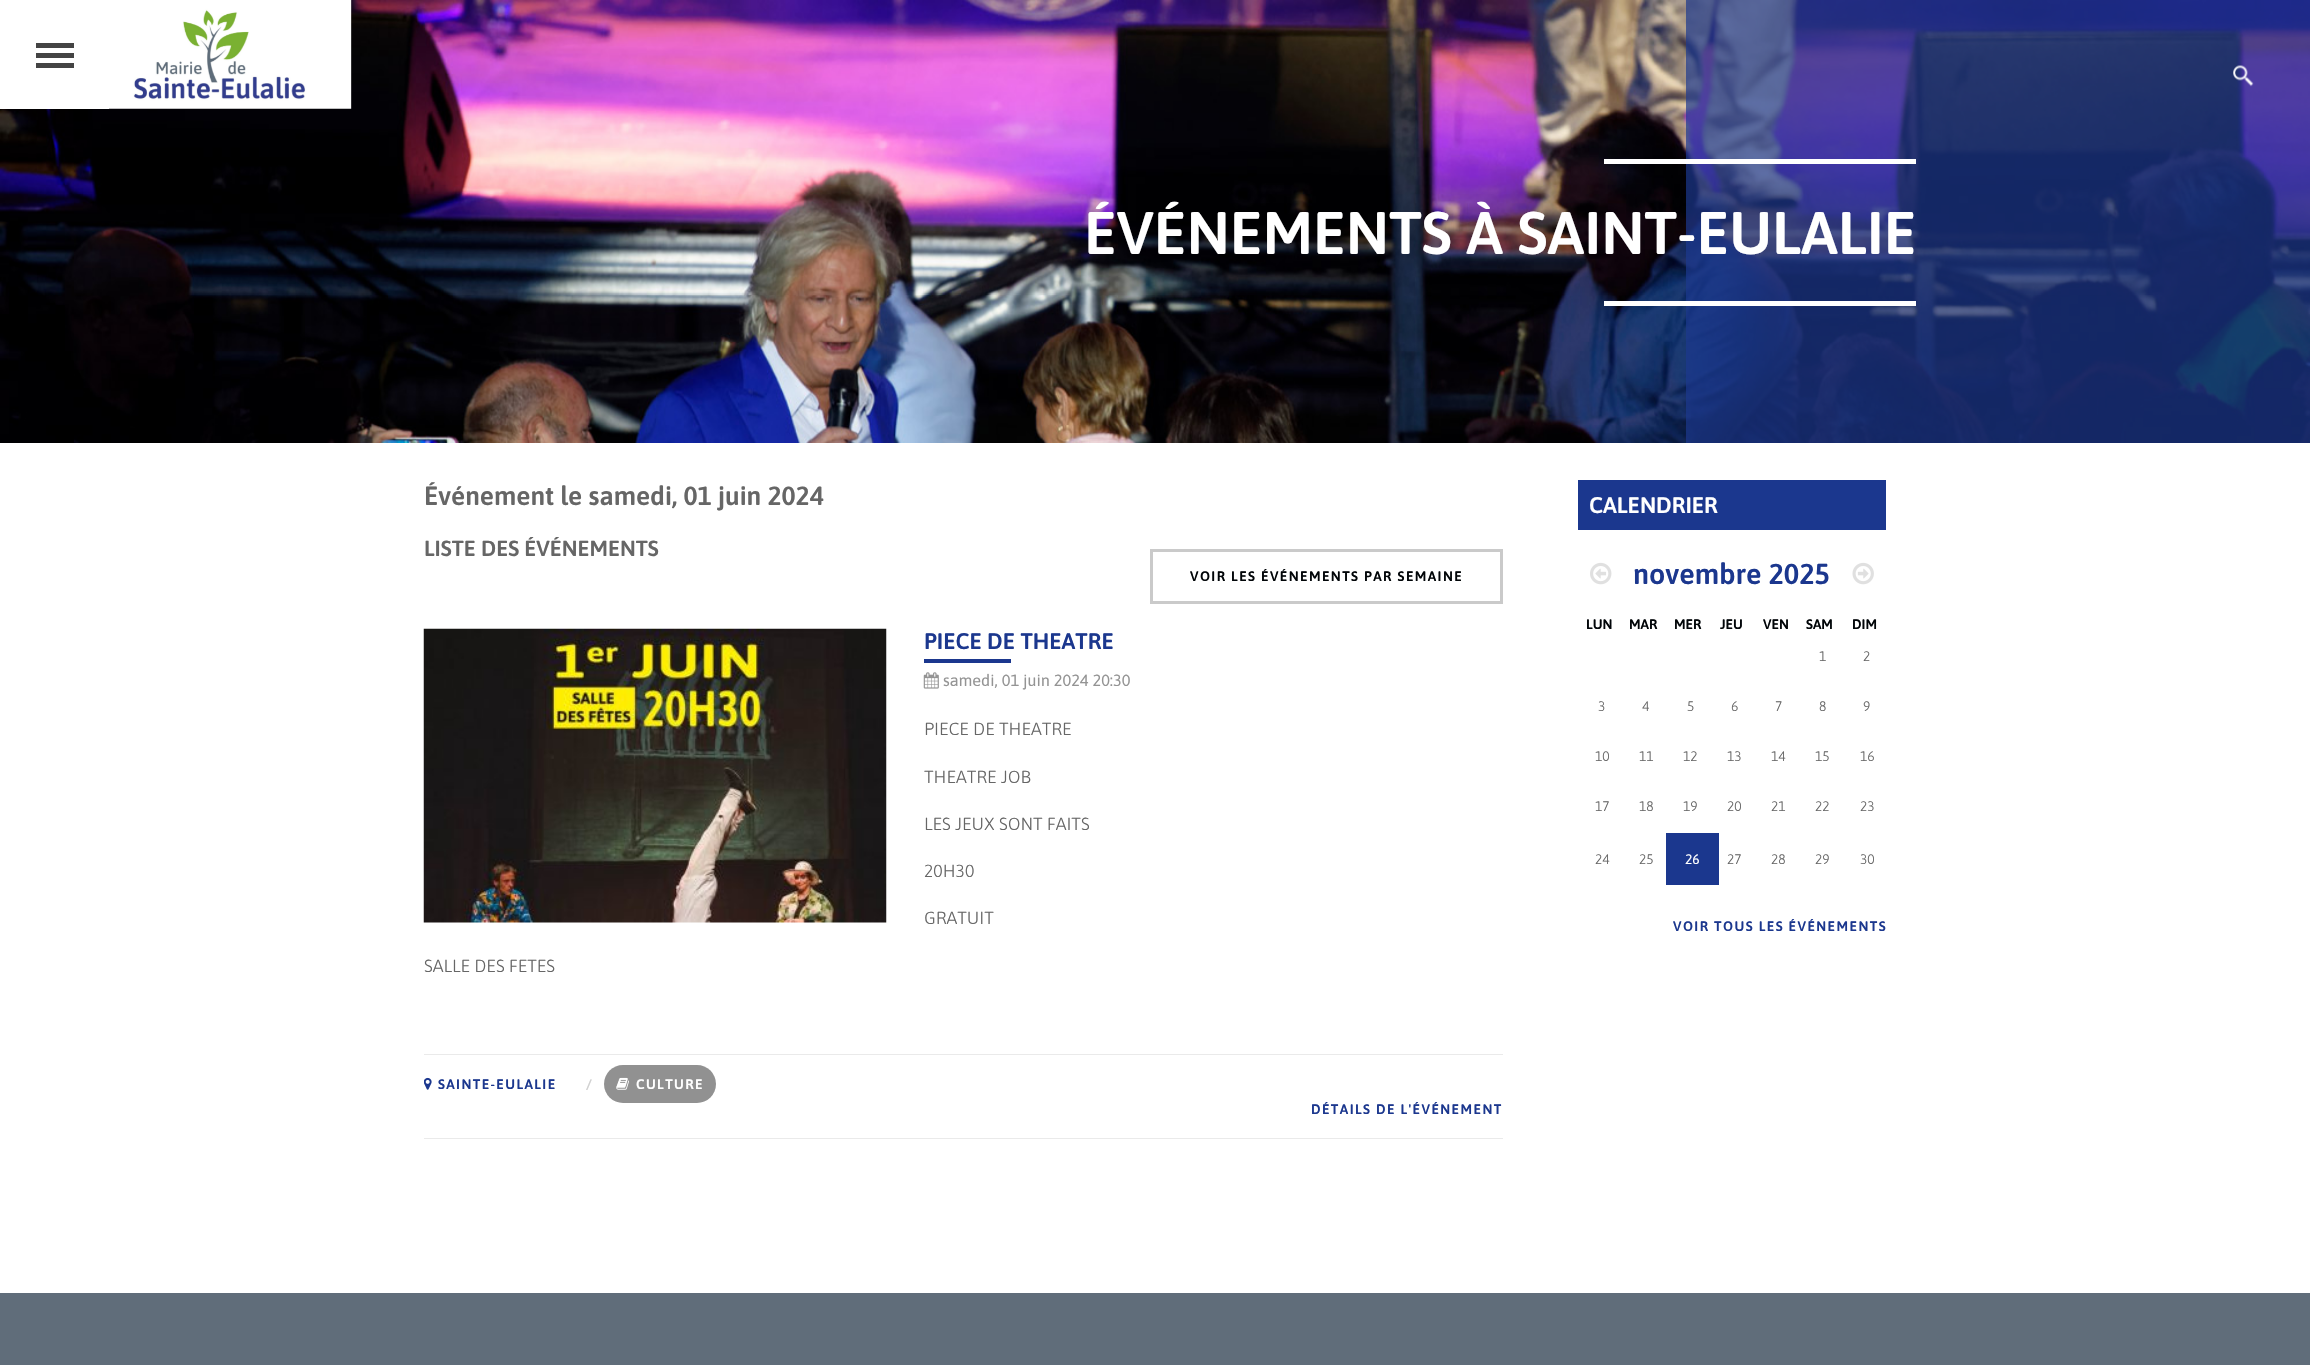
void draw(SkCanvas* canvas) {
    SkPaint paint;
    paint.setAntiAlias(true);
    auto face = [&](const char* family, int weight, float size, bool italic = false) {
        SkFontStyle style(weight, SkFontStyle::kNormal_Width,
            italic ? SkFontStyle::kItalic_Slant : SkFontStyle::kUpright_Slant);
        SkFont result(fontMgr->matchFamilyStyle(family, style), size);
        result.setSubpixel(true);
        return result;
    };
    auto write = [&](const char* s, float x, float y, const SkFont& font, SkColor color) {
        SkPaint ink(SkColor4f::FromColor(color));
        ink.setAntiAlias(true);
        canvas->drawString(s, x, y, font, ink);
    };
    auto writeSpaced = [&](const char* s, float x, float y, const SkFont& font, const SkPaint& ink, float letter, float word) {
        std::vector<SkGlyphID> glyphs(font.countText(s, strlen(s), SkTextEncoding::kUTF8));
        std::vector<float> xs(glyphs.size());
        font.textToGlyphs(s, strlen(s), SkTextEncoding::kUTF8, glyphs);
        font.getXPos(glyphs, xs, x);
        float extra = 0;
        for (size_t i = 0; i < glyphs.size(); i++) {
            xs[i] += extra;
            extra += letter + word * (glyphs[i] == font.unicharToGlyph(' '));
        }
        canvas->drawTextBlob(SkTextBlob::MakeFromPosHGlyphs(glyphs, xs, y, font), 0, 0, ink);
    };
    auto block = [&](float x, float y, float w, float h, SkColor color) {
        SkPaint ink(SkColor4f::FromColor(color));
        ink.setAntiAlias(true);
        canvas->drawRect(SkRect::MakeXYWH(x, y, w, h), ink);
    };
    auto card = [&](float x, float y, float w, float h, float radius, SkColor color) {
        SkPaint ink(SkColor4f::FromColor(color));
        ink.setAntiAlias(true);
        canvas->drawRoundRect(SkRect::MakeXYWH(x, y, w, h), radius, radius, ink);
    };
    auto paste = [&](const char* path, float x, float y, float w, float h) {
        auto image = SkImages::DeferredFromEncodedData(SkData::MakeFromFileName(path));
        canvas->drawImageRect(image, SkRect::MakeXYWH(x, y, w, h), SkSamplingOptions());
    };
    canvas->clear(SK_ColorWHITE);
    paste("pic1.png", 0, 0, 2310, 443);
    block(0, 0, 109, 109, SK_ColorWHITE);
    block(36, 43, 38, 5, SkColorSetRGB(68, 68, 68));
    block(36, 53, 38, 5, SkColorSetRGB(68, 68, 68));
    block(36, 63, 38, 5, SkColorSetRGB(68, 68, 68));
    paste("pic2.png", 109, 0, 243, 109);
    block(1686, 0, 624, 443, SkColorSetARGB(179, 27, 55, 142));
    paste("pic3.png", 2233, 65, 21, 22);
    block(1604, 159, 312, 5, SK_ColorWHITE);
    auto kFont1 = face("Asap", 600, 60);
    write("ÉVÉNEMENTS À SAINT-EULALIE", 1084, 254, kFont1, SK_ColorWHITE);
    block(1604, 301, 312, 5, SK_ColorWHITE);
    auto kFont2 = face("Asap", 600, 26.25f);
    write("Événement le samedi, 01 juin 2024", 424, 505, kFont2, SkColorSetRGB(102, 102, 102));
    auto kFont3 = face("Asap", 600, 21.9f);
    write("LISTE DES ÉVÉNEMENTS", 424, 556, kFont3, SkColorSetRGB(102, 102, 102));
    paint.setStyle(SkPaint::kStroke_Style);
    paint.setStrokeWidth(3);
    paint.setColor(SkColorSetRGB(202, 202, 202));
    canvas->drawRect(SkRect::MakeXYWH(1151.5f, 550.5f, 350, 52), paint);
    auto kFont4 = face("Asap", 600, 13.75f);
    paint.setStyle(SkPaint::kFill_Style);
    paint.setColor(SkColorSetRGB(1, 5, 8));
    writeSpaced("VOIR LES ÉVÉNEMENTS PAR SEMAINE", 1190, 581, kFont4, paint, 1.4f, 0);
    paste("pic4.png", 423, 628, 464, 295);
    auto kFont5 = face("Asap", 600, 22.5f);
    write("PIECE DE THEATRE", 924, 649, kFont5, SkColorSetRGB(27, 55, 142));
    block(924, 659, 87, 4, SkColorSetRGB(27, 55, 142));
    paste("pic5.png", 923, 672, 16, 17);
    auto kFont6 = face("Asap", 400, 16.25f);
    write("samedi, 01 juin 2024 20:30", 943, 686, kFont6, SkColorSetRGB(148, 148, 148));
    auto kFont7 = face("Asap", 300, 17.5f);
    write("PIECE DE THEATRE", 924, 735, kFont7, SkColorSetRGB(102, 102, 102));
    write("THEATRE JOB", 924, 783, kFont7, SkColorSetRGB(102, 102, 102));
    write("LES JEUX SONT FAITS", 924, 830, kFont7, SkColorSetRGB(102, 102, 102));
    write("20H30", 924, 877, kFont7, SkColorSetRGB(102, 102, 102));
    write("GRATUIT", 924, 924, kFont7, SkColorSetRGB(102, 102, 102));
    write("SALLE DES FETES", 424, 972, kFont7, SkColorSetRGB(102, 102, 102));
    block(424, 1054, 1079, 1, SkColorSetRGB(234, 234, 234));
    block(424, 1138, 1079, 1, SkColorSetRGB(234, 234, 234));
    paste("pic6.png", 424, 1077, 8, 13);
    paint.setColor(SkColorSetRGB(27, 55, 142));
    writeSpaced("SAINTE-EULALIE", 438, 1089, kFont4, paint, 1.4f, 0);
    card(604, 1065, 112, 38, 19, SkColorSetRGB(145, 145, 145));
    paint.setColor(SkColorSetRGB(209, 209, 209));
    writeSpaced("/", 586, 1089, kFont4, paint, 1.4f, 0);
    paste("pic7.png", 616, 1077, 13, 13);
    paint.setColor(SK_ColorWHITE);
    writeSpaced("CULTURE", 636, 1089, kFont4, paint, 1.4f, 0);
    paint.setColor(SkColorSetRGB(27, 55, 142));
    writeSpaced("DÉTAILS DE L'ÉVÉNEMENT", 1311, 1114, kFont4, paint, 1.4f, 0);
    block(1578, 480, 308, 50, SkColorSetRGB(27, 55, 142));
    write("CALENDRIER", 1589, 513, kFont5, SK_ColorWHITE);
    auto kFont8 = face("Asap", 600, 28.75f);
    write("novembre 2025", 1633, 584, kFont8, SkColorSetRGB(27, 55, 142));
    write("LUN", 1586, 629, kFont4, SkColorSetRGB(1, 5, 8));
    write("MAR", 1629, 629, kFont4, SkColorSetRGB(1, 5, 8));
    write("MER", 1674, 629, kFont4, SkColorSetRGB(1, 5, 8));
    write("JEU", 1720, 629, kFont4, SkColorSetRGB(1, 5, 8));
    write("VEN", 1763, 629, kFont4, SkColorSetRGB(1, 5, 8));
    write("SAM", 1806, 629, kFont4, SkColorSetRGB(1, 5, 8));
    write("DIM", 1852, 629, kFont4, SkColorSetRGB(1, 5, 8));
    auto kFont9 = face("Asap", 300, 13.75f);
    write("1", 1819, 661, kFont9, SkColorSetRGB(102, 102, 102));
    write("2", 1863, 661, kFont9, SkColorSetRGB(102, 102, 102));
    write("3", 1598, 711, kFont9, SkColorSetRGB(102, 102, 102));
    write("4", 1642, 711, kFont9, SkColorSetRGB(102, 102, 102));
    write("5", 1687, 711, kFont9, SkColorSetRGB(102, 102, 102));
    write("6", 1731, 711, kFont9, SkColorSetRGB(102, 102, 102));
    write("7", 1775, 711, kFont9, SkColorSetRGB(102, 102, 102));
    write("8", 1819, 711, kFont9, SkColorSetRGB(102, 102, 102));
    write("9", 1863, 711, kFont9, SkColorSetRGB(102, 102, 102));
    write("10", 1595, 761, kFont9, SkColorSetRGB(102, 102, 102));
    write("11", 1639, 761, kFont9, SkColorSetRGB(102, 102, 102));
    write("12", 1683, 761, kFont9, SkColorSetRGB(102, 102, 102));
    write("13", 1727, 761, kFont9, SkColorSetRGB(102, 102, 102));
    write("14", 1771, 761, kFont9, SkColorSetRGB(102, 102, 102));
    write("15", 1815, 761, kFont9, SkColorSetRGB(102, 102, 102));
    write("16", 1860, 761, kFont9, SkColorSetRGB(102, 102, 102));
    write("17", 1595, 811, kFont9, SkColorSetRGB(102, 102, 102));
    write("18", 1639, 811, kFont9, SkColorSetRGB(102, 102, 102));
    write("19", 1683, 811, kFont9, SkColorSetRGB(102, 102, 102));
    write("20", 1727, 811, kFont9, SkColorSetRGB(102, 102, 102));
    write("21", 1771, 811, kFont9, SkColorSetRGB(102, 102, 102));
    write("22", 1815, 811, kFont9, SkColorSetRGB(102, 102, 102));
    write("23", 1860, 811, kFont9, SkColorSetRGB(102, 102, 102));
    write("24", 1595, 864, kFont9, SkColorSetRGB(102, 102, 102));
    write("25", 1639, 864, kFont9, SkColorSetRGB(102, 102, 102));
    block(1666, 833, 53, 52, SkColorSetRGB(27, 55, 142));
    auto kFont10 = face("Asap", 400, 13.75f);
    write("26", 1685, 864, kFont10, SK_ColorWHITE);
    write("27", 1727, 864, kFont9, SkColorSetRGB(102, 102, 102));
    write("28", 1771, 864, kFont9, SkColorSetRGB(102, 102, 102));
    write("29", 1815, 864, kFont9, SkColorSetRGB(102, 102, 102));
    write("30", 1860, 864, kFont9, SkColorSetRGB(102, 102, 102));
    paste("pic8.png", 1590, 562, 22, 23);
    paste("pic9.png", 1852, 562, 22, 23);
    writeSpaced("VOIR TOUS LES ÉVÉNEMENTS", 1673, 931, kFont4, paint, 1.4f, 0);
    block(0, 1293, 2310, 72, SkColorSetRGB(96, 109, 122));
}
